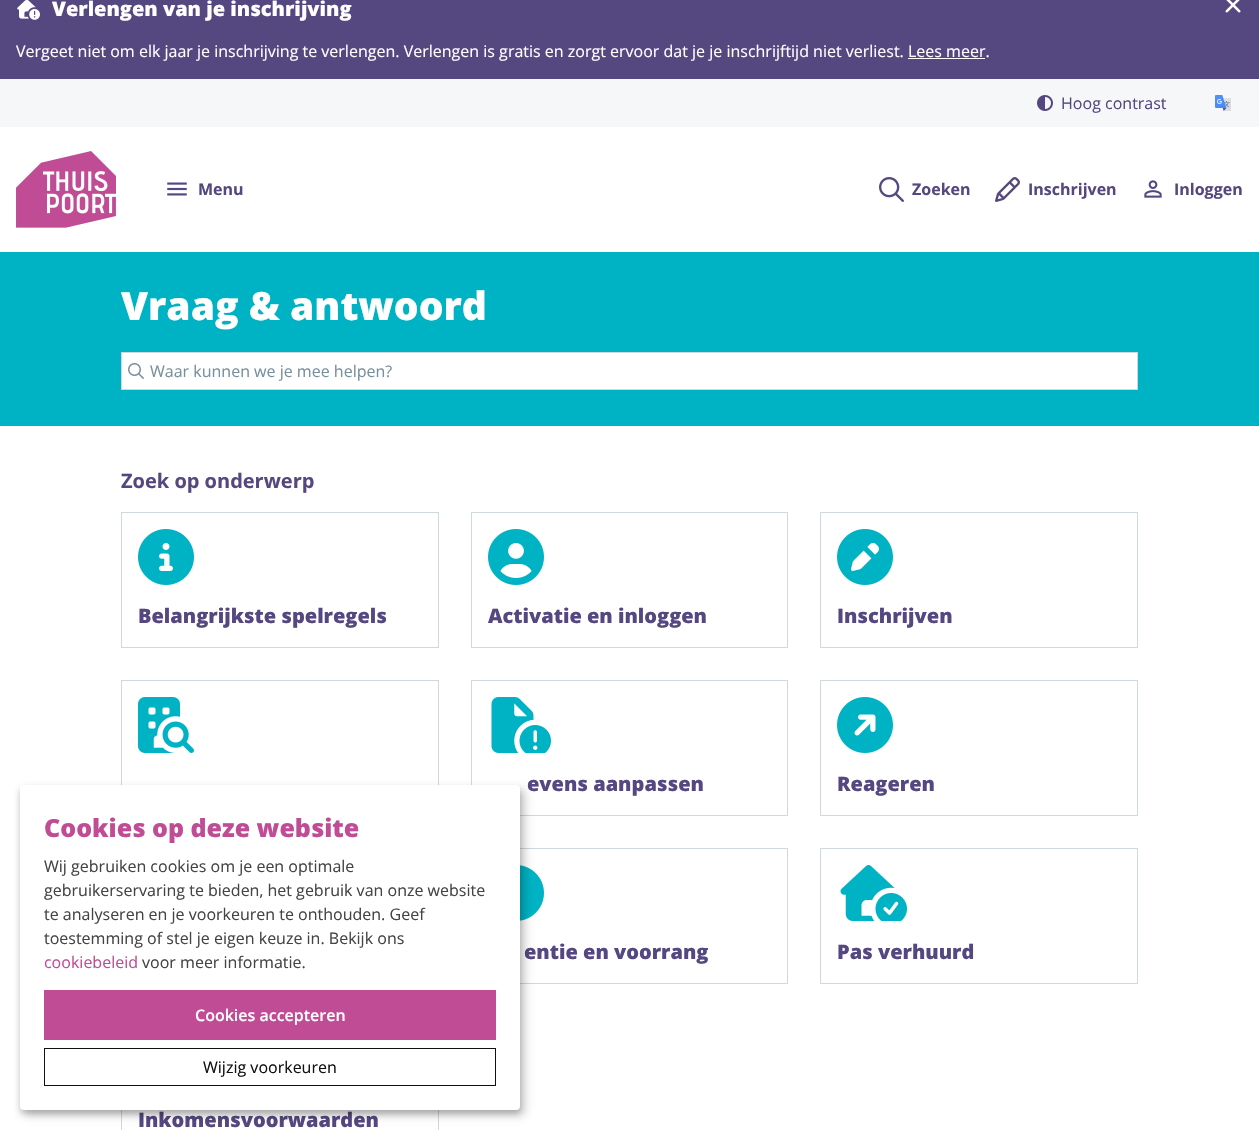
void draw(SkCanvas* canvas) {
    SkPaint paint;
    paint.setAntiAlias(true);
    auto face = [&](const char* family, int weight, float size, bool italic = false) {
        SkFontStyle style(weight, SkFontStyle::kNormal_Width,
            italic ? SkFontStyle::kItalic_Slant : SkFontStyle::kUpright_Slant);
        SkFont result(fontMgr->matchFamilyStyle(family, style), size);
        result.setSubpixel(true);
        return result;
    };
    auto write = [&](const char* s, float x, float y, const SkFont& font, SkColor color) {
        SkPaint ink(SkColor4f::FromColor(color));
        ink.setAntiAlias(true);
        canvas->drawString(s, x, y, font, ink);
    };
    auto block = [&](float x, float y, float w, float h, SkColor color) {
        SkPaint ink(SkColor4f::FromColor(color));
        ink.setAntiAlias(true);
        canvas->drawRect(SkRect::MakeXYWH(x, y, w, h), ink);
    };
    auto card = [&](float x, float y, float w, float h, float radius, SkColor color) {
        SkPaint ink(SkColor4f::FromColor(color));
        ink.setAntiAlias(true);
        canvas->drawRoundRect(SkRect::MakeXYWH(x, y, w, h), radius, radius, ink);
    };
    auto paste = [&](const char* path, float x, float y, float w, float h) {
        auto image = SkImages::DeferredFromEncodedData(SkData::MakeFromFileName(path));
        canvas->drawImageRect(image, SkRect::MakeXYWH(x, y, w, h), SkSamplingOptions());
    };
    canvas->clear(SK_ColorWHITE);
    block(0, 0, 1259, 79, SkColorSetRGB(85, 71, 127));
    paste("pic1.png", 17, 0, 23, 20);
    auto kFont1 = face("Open Sans", 800, 20);
    write("Verlengen van je inschrijving", 52, 16, kFont1, SK_ColorWHITE);
    paste("pic2.png", 1225, 0, 16, 13);
    auto kFont2 = face("Open Sans", 400, 16);
    write("Vergeet niet om elk jaar je inschrijving te verlengen. Verlengen is gratis en zorgt ervoor dat je je inschrijftijd niet verliest. Lees meer.", 16, 57, kFont2, SK_ColorWHITE);
    block(908, 58, 77, 1, SK_ColorWHITE);
    block(0, 79, 1259, 48, SkColorSetRGB(245, 247, 248));
    paste("pic3.png", 1037, 95, 16, 16);
    write("Hoog contrast", 1061, 109, kFont2, SkColorSetRGB(85, 71, 127));
    paste("pic4.png", 1215, 95, 16, 16);
    paste("pic5.png", 16, 151, 100, 77);
    paste("pic6.png", 167, 182, 20, 14);
    auto kFont3 = face("Open Sans", 700, 16);
    write("Menu", 198, 195, kFont3, SkColorSetRGB(85, 71, 127));
    paste("pic7.png", 879, 177, 25, 25);
    write("Zoeken", 912, 195, kFont3, SkColorSetRGB(85, 71, 127));
    paste("pic8.png", 995, 177, 25, 25);
    write("Inschrijven", 1028, 195, kFont3, SkColorSetRGB(85, 71, 127));
    paste("pic9.png", 1144, 180, 18, 18);
    write("Inloggen", 1174, 195, kFont3, SkColorSetRGB(85, 71, 127));
    block(0, 252, 1259, 174, SkColorSetRGB(0, 179, 196));
    auto kFont4 = face("Open Sans", 800, 39);
    write("Vraag & antwoord", 121, 320, kFont4, SK_ColorWHITE);
    paint.setColor(SK_ColorWHITE);
    canvas->drawRect(SkRect::MakeXYWH(121.5f, 352.5f, 1016, 37), paint);
    paint.setStyle(SkPaint::kStroke_Style);
    paint.setStrokeWidth(1);
    paint.setColor(SkColorSetRGB(207, 216, 220));
    canvas->drawRect(SkRect::MakeXYWH(121.5f, 352.5f, 1016, 37), paint);
    paste("pic10.png", 128, 363, 16, 16);
    write("Waar kunnen we je mee helpen?", 150, 377, kFont2, SkColorSetRGB(120, 144, 156));
    auto kFont5 = face("Open Sans", 700, 20);
    write("Zoek op onderwerp", 121, 488, kFont5, SkColorSetRGB(85, 71, 127));
    canvas->drawRect(SkRect::MakeXYWH(121.5f, 512.5f, 317, 135), paint);
    paste("pic11.png", 138, 529, 56, 56);
    write("Belangrijkste spelregels", 138, 623, kFont1, SkColorSetRGB(85, 71, 127));
    canvas->drawRect(SkRect::MakeXYWH(471.5f, 512.5f, 316, 135), paint);
    paste("pic12.png", 488, 529, 56, 56);
    write("Activatie en inloggen", 488, 623, kFont1, SkColorSetRGB(85, 71, 127));
    canvas->drawRect(SkRect::MakeXYWH(820.5f, 512.5f, 317, 135), paint);
    paste("pic13.png", 837, 529, 56, 56);
    write("Inschrijven", 837, 623, kFont1, SkColorSetRGB(85, 71, 127));
    canvas->drawRect(SkRect::MakeXYWH(121.5f, 680.5f, 317, 135), paint);
    paste("pic14.png", 138, 697, 56, 56);
    canvas->drawRect(SkRect::MakeXYWH(471.5f, 680.5f, 316, 135), paint);
    paste("pic15.png", 491, 697, 60, 56);
    write("evens aanpassen", 527, 791, kFont1, SkColorSetRGB(85, 71, 127));
    canvas->drawRect(SkRect::MakeXYWH(820.5f, 680.5f, 317, 135), paint);
    paste("pic16.png", 837, 697, 56, 56);
    write("Reageren", 837, 791, kFont1, SkColorSetRGB(85, 71, 127));
    canvas->drawRect(SkRect::MakeXYWH(471.5f, 848.5f, 316, 135), paint);
    paste("pic17.png", 520, 865, 24, 56);
    write("entie en voorrang", 524, 959, kFont1, SkColorSetRGB(85, 71, 127));
    canvas->drawRect(SkRect::MakeXYWH(820.5f, 848.5f, 317, 135), paint);
    paste("pic18.png", 840, 865, 67, 56);
    write("Pas verhuurd", 837, 959, kFont1, SkColorSetRGB(85, 71, 127));
    canvas->drawRect(SkRect::MakeXYWH(121.5f, 1016.5f, 317, 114), paint);
    write("Inkomensvoorwaarden", 138, 1127, kFont1, SkColorSetRGB(85, 71, 127));
    paint.setStyle(SkPaint::kFill_Style);
    paint.setColor(SkColorSetARGB(48, 0, 0, 0));
    paint.setMaskFilter(SkMaskFilter::MakeBlur(kNormal_SkBlurStyle, 5));
    canvas->drawRoundRect(SkRect::MakeXYWH(25, 790, 500, 325), 4, 4, paint);
    paint.setMaskFilter(nullptr);
    paint.setColor(SkColorSetARGB(51, 0, 0, 0));
    paint.setMaskFilter(SkMaskFilter::MakeBlur(kNormal_SkBlurStyle, 3));
    canvas->drawRoundRect(SkRect::MakeXYWH(20, 789, 500, 325), 4, 4, paint);
    paint.setMaskFilter(nullptr);
    card(20, 785, 500, 325, 4, SK_ColorWHITE);
    auto kFont6 = face("Open Sans", 800, 25);
    write("Cookies op deze website", 44, 837, kFont6, SkColorSetRGB(192, 76, 150));
    write("Wij gebruiken cookies om je een optimale", 44, 872, kFont2, SkColorSetRGB(68, 68, 68));
    write("gebruikerservaring te bieden, het gebruik van onze website", 44, 896, kFont2, SkColorSetRGB(68, 68, 68));
    write("te analyseren en je voorkeuren te onthouden. Geef", 44, 920, kFont2, SkColorSetRGB(68, 68, 68));
    write("toestemming of stel je eigen keuze in. Bekijk ons", 44, 944, kFont2, SkColorSetRGB(68, 68, 68));
    write("cookiebeleid", 44, 968, kFont2, SkColorSetRGB(192, 76, 150));
    write("voor meer informatie.", 142, 968, kFont2, SkColorSetRGB(68, 68, 68));
    block(44, 990, 452, 50, SkColorSetRGB(192, 76, 150));
    auto kFont7 = face("Open Sans", 600, 16);
    write("Cookies accepteren", 195, 1021, kFont7, SK_ColorWHITE);
    paint.setStyle(SkPaint::kStroke_Style);
    paint.setColor(SkColorSetRGB(17, 17, 17));
    canvas->drawRect(SkRect::MakeXYWH(44.5f, 1048.5f, 451, 37), paint);
    write("Wijzig voorkeuren", 203, 1073, kFont2, SkColorSetRGB(17, 17, 17));
}
